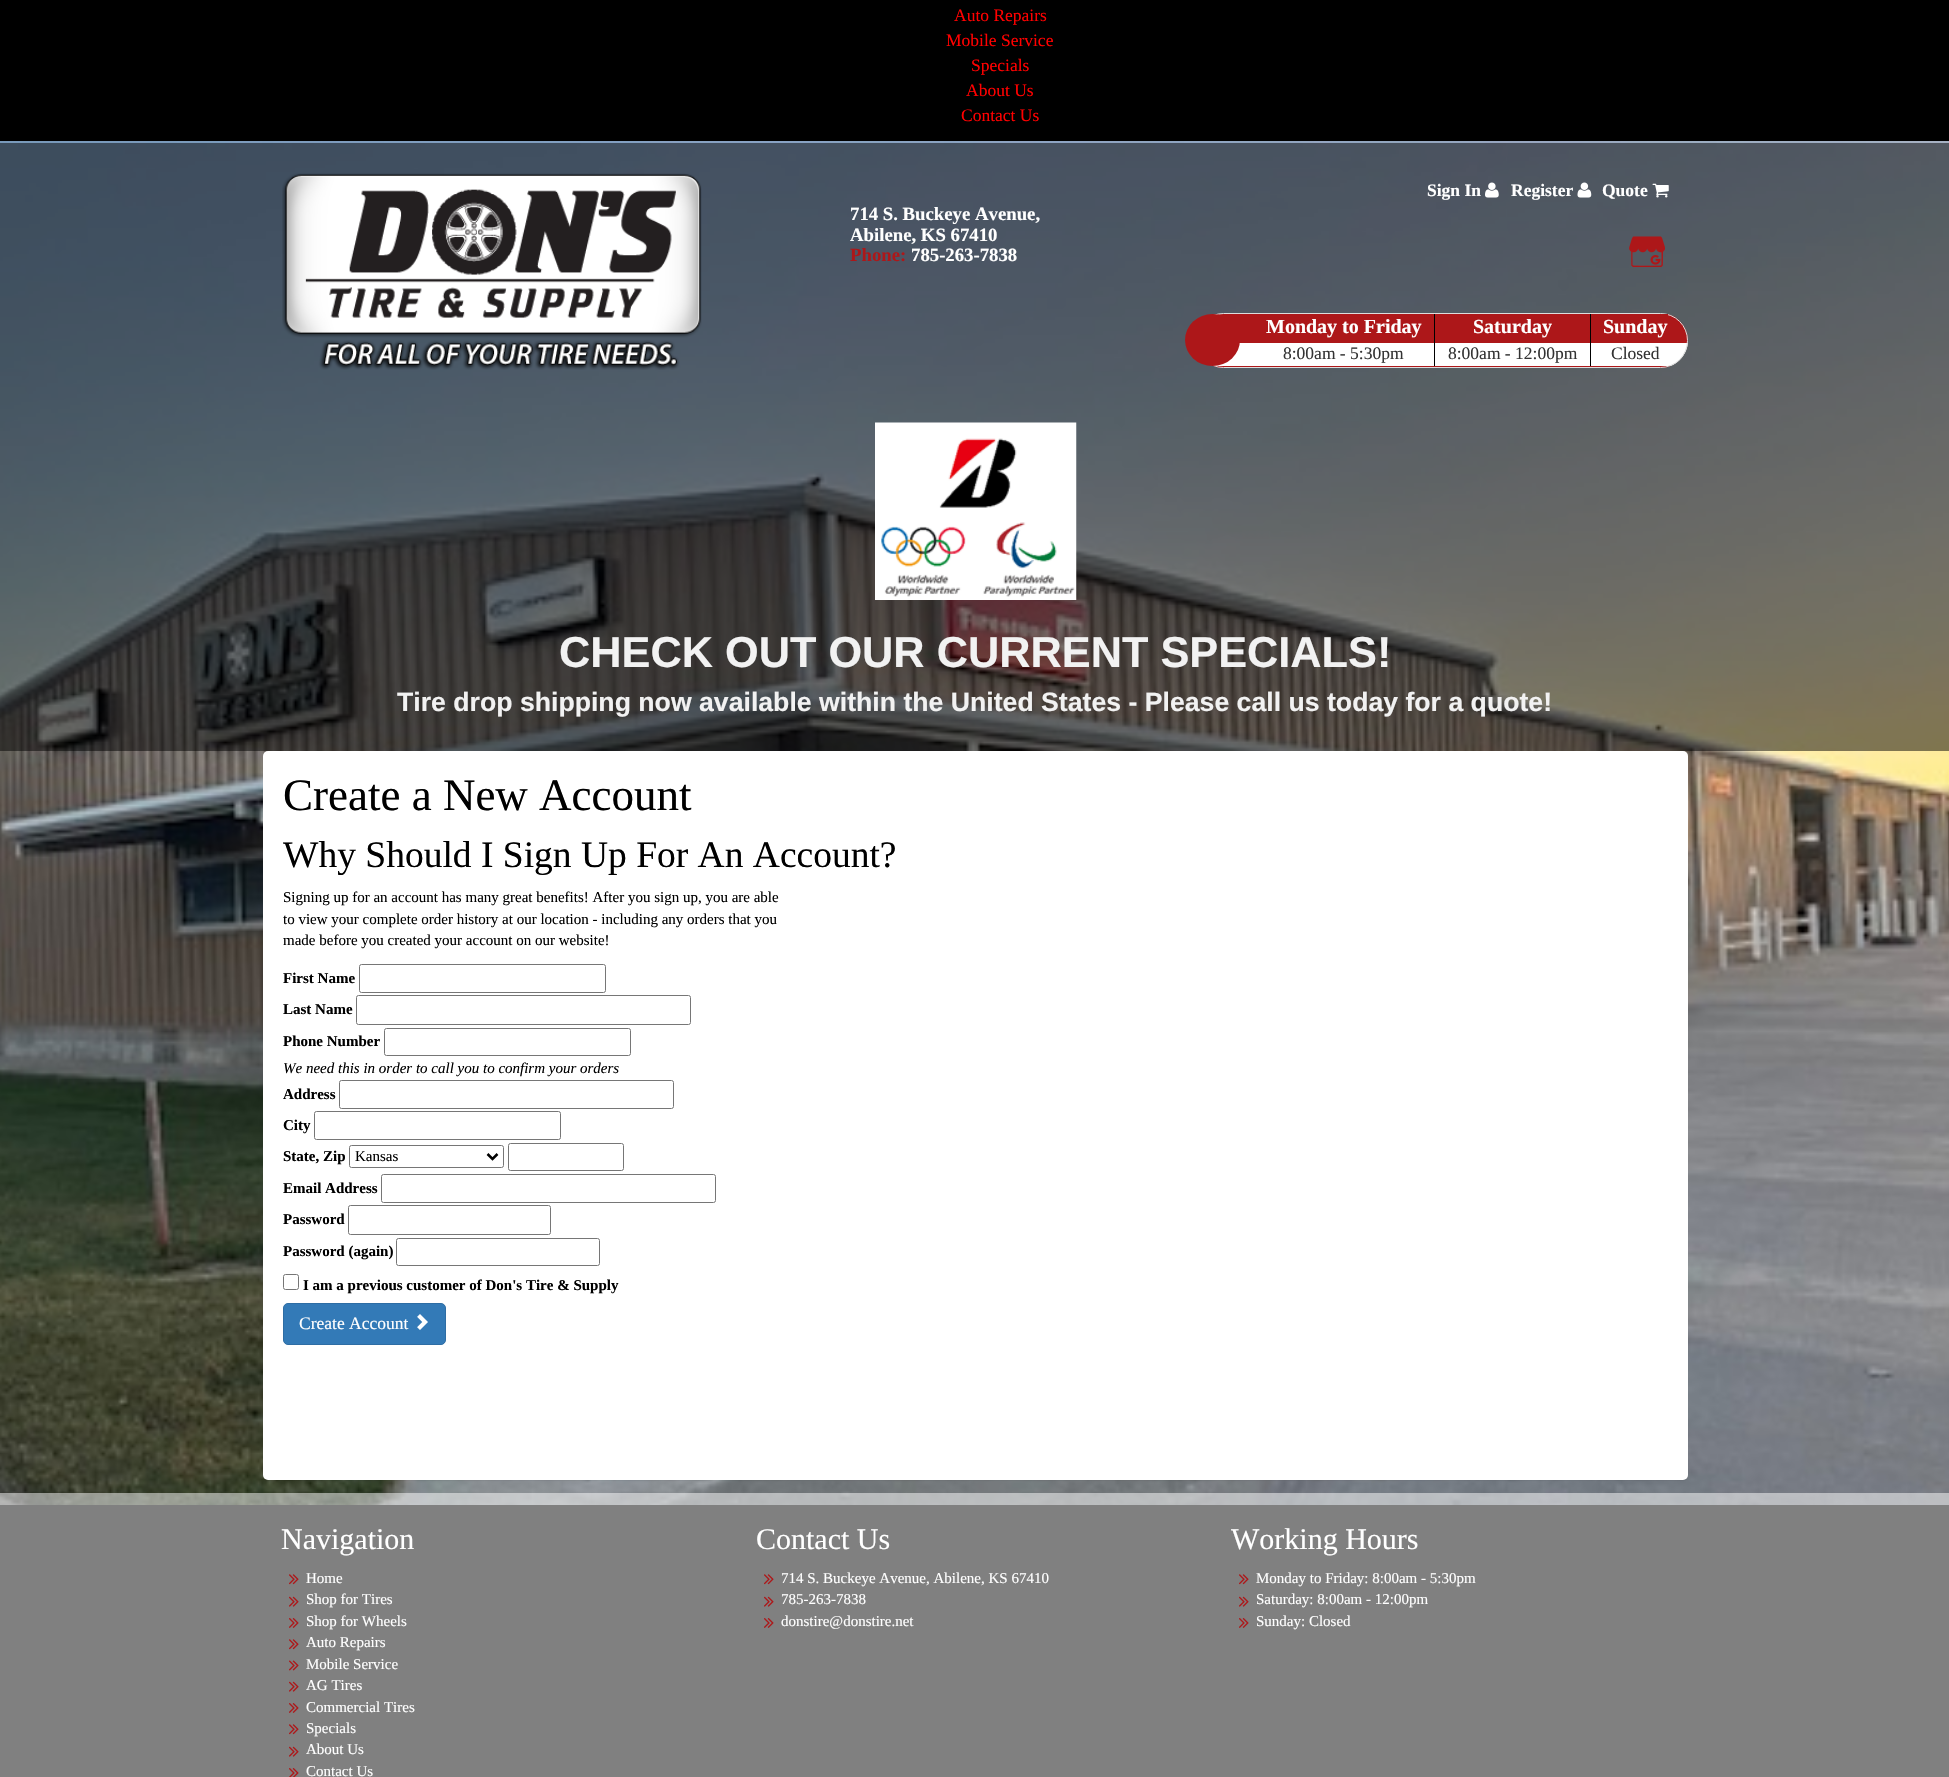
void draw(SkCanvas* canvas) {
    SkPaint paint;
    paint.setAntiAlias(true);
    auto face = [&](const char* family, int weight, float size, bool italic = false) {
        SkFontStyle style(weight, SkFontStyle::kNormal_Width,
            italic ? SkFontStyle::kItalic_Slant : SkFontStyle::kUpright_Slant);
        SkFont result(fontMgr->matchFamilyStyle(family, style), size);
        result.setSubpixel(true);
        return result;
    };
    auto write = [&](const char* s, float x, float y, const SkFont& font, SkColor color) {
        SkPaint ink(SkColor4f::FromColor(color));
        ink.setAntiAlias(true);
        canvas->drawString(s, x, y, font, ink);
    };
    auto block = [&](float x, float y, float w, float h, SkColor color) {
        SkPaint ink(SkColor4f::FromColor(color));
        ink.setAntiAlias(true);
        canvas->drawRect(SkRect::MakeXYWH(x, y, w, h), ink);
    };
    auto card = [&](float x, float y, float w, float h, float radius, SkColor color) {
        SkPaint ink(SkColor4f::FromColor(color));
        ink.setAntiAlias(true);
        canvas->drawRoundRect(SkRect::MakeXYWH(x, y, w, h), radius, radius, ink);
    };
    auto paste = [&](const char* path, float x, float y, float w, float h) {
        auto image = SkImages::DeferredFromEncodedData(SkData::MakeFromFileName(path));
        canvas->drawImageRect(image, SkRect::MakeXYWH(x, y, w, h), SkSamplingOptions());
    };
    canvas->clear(SK_ColorWHITE);
    block(0, 0, 1949, 141, SK_ColorBLACK);
    auto kFont1 = face("Liberation Serif", 400, 17.5f);
    write("Auto Repairs", 954, 21, kFont1, SkColorSetRGB(255, 0, 0));
    write("Mobile Service", 946, 46, kFont1, SkColorSetRGB(255, 0, 0));
    write("Specials", 971, 71, kFont1, SkColorSetRGB(255, 0, 0));
    write("About Us", 966, 96, kFont1, SkColorSetRGB(255, 0, 0));
    write("Contact Us", 961, 121, kFont1, SkColorSetRGB(255, 0, 0));
    paste("pic1.png", 0, 141, 1949, 1364);
    block(0, 143, 1949, 258, SkColorSetARGB(128, 0, 0, 0));
    paste("pic2.png", 282, 173, 420, 197);
    auto kFont2 = face("Liberation Serif", 700, 17.5f);
    write("Sign In", 1427, 196, kFont2, SK_ColorWHITE);
    paste("pic3.png", 1485, 182, 14, 16);
    write("Register", 1511, 196, kFont2, SK_ColorWHITE);
    paste("pic4.png", 1577, 182, 15, 16);
    write("Quote", 1602, 196, kFont2, SK_ColorWHITE);
    paste("pic5.png", 1652, 183, 17, 15);
    paste("pic6.png", 1629, 236, 36, 32);
    auto kFont3 = face("Liberation Serif", 700, 18.75f);
    write("714 S. Buckeye Avenue,", 850, 220, kFont3, SK_ColorWHITE);
    write("Abilene, KS 67410", 850, 241, kFont3, SK_ColorWHITE);
    write("Phone:", 850, 261, kFont3, SkColorSetRGB(173, 23, 25));
    write("785-263-7838", 911, 261, kFont3, SK_ColorWHITE);
    canvas->save();
    canvas->clipPath(SkPathBuilder().moveTo(1223.5f, 313).lineTo(1660.5f, 313).cubicTo(1675.5f, 313, 1688, 325.5f, 1688, 340.5f).cubicTo(1688, 355.5f, 1675.5f, 368, 1660.5f, 368).lineTo(1223.5f, 368).cubicTo(1208.5f, 368, 1196, 355.5f, 1196, 340.5f).cubicTo(1196, 325.5f, 1208.5f, 313, 1223.5f, 313).close().detach(), true);
    block(1213, 314, 475, 29, SkColorSetRGB(173, 23, 25));
    block(1211, 343, 477, 23, SK_ColorWHITE);
    block(1213, 366, 458, 2, SkColorSetRGB(173, 23, 25));
    canvas->restore();
    paint.setStyle(SkPaint::kStroke_Style);
    paint.setStrokeWidth(1);
    paint.setColor(SkColorSetRGB(221, 221, 221));
    canvas->drawRoundRect(SkRect::MakeXYWH(1196.5f, 313.5f, 491, 54), 27, 27, paint);
    paint.setStyle(SkPaint::kFill_Style);
    paint.setColor(SkColorSetRGB(173, 23, 25));
    canvas->drawOval(SkRect::MakeXYWH(1185, 314, 55, 52), paint);
    block(1434, 314, 1, 52, SK_ColorBLACK);
    auto kFont4 = face("Liberation Serif", 700, 20);
    write("Monday to Friday", 1266, 333, kFont4, SK_ColorWHITE);
    write("8:00am - 5:30pm", 1283, 359, kFont1, SkColorSetRGB(51, 51, 51));
    block(1590, 314, 1, 52, SK_ColorBLACK);
    write("Saturday", 1473, 333, kFont4, SK_ColorWHITE);
    write("8:00am - 12:00pm", 1448, 359, kFont1, SkColorSetRGB(51, 51, 51));
    block(1661, 314, 7, 2, SkColorSetRGB(173, 23, 25));
    write("Sunday", 1603, 333, kFont4, SK_ColorWHITE);
    write("Closed", 1611, 359, kFont1, SkColorSetRGB(51, 51, 51));
    block(0, 401, 1949, 350, SkColorSetARGB(128, 0, 0, 0));
    paste("pic7.png", 875, 422, 202, 178);
    auto kFont5 = face("Liberation Sans", 700, 43.3f);
    write("CHECK OUT OUR CURRENT SPECIALS!", 559, 667, kFont5, SkColorSetRGB(242, 242, 242));
    auto kFont6 = face("Liberation Sans", 700, 26.65f);
    write("Tire drop shipping now available within the United States - Please call us today for a quote!", 397, 711, kFont6, SkColorSetRGB(242, 242, 242));
    paint.setColor(SkColorSetARGB(13, 0, 0, 0));
    paint.setMaskFilter(SkMaskFilter::MakeBlur(kNormal_SkBlurStyle, 0.5f));
    canvas->drawRoundRect(SkRect::MakeXYWH(263, 753, 1425, 728), 5, 5, paint);
    paint.setMaskFilter(nullptr);
    card(263, 751, 1425, 729, 5, SK_ColorWHITE);
    auto kFont7 = face("Liberation Serif", 400, 45);
    write("Create a New Account", 283, 810, kFont7, SK_ColorBLACK);
    auto kFont8 = face("Liberation Serif", 400, 37.5f);
    write("Why Should I Sign Up For An Account?", 283, 867, kFont8, SK_ColorBLACK);
    auto kFont9 = face("Liberation Serif", 400, 15);
    write("Signing up for an account has many great benefits! After you sign up, you are able", 283, 902, kFont9, SK_ColorBLACK);
    write("to view your complete order history at our location - including any orders that you", 283, 924, kFont9, SK_ColorBLACK);
    write("made before you created your account on our website!", 283, 945, kFont9, SK_ColorBLACK);
    auto kFont10 = face("Liberation Serif", 700, 15);
    write("First Name", 283, 983, kFont10, SK_ColorBLACK);
    paint.setStyle(SkPaint::kStroke_Style);
    paint.setColor(SkColorSetRGB(118, 118, 118));
    canvas->drawRoundRect(SkRect::MakeXYWH(359.5f, 964.5f, 246, 28), 2, 2, paint);
    write("Last Name", 283, 1014, kFont10, SK_ColorBLACK);
    canvas->drawRoundRect(SkRect::MakeXYWH(356.5f, 995.5f, 334, 29), 2, 2, paint);
    write("Phone Number", 283, 1046, kFont10, SK_ColorBLACK);
    canvas->drawRoundRect(SkRect::MakeXYWH(384.5f, 1028.5f, 246, 27), 2, 2, paint);
    auto kFont11 = face("Liberation Serif", 400, 15, true);
    write("We need this in order to call you to confirm your orders", 283, 1073, kFont11, SK_ColorBLACK);
    write("Address", 283, 1099, kFont10, SK_ColorBLACK);
    canvas->drawRoundRect(SkRect::MakeXYWH(339.5f, 1080.5f, 334, 28), 2, 2, paint);
    write("City", 283, 1130, kFont10, SK_ColorBLACK);
    canvas->drawRoundRect(SkRect::MakeXYWH(314.5f, 1111.5f, 246, 28), 2, 2, paint);
    write("State, Zip", 283, 1161, kFont10, SK_ColorBLACK);
    canvas->drawRoundRect(SkRect::MakeXYWH(349.5f, 1145.5f, 154, 22), 2, 2, paint);
    paint.setStrokeWidth(2.5f);
    paint.setColor(SK_ColorBLACK);
    canvas->drawPath(SkPathBuilder().moveTo(487.5f, 1154).lineTo(492.5f, 1159).lineTo(497.5f, 1154).detach(), paint);
    write("Kansas", 355, 1161, kFont9, SK_ColorBLACK);
    paint.setStrokeWidth(1);
    paint.setColor(SkColorSetRGB(118, 118, 118));
    canvas->drawRoundRect(SkRect::MakeXYWH(508.5f, 1143.5f, 115, 27), 2, 2, paint);
    write("Email Address", 283, 1193, kFont10, SK_ColorBLACK);
    canvas->drawRoundRect(SkRect::MakeXYWH(381.5f, 1174.5f, 334, 28), 2, 2, paint);
    write("Password", 283, 1224, kFont10, SK_ColorBLACK);
    canvas->drawRoundRect(SkRect::MakeXYWH(348.5f, 1205.5f, 202, 29), 2, 2, paint);
    write("Password (again)", 283, 1256, kFont10, SK_ColorBLACK);
    canvas->drawRoundRect(SkRect::MakeXYWH(396.5f, 1238.5f, 203, 27), 2, 2, paint);
    canvas->drawRoundRect(SkRect::MakeXYWH(283.5f, 1274.5f, 15, 15), 2, 2, paint);
    write("I am a previous customer of Don's Tire & Supply", 303, 1290, kFont10, SK_ColorBLACK);
    paint.setStyle(SkPaint::kFill_Style);
    paint.setColor(SkColorSetRGB(51, 122, 183));
    canvas->drawRoundRect(SkRect::MakeXYWH(283.5f, 1303.5f, 162, 41), 4.5f, 4.5f, paint);
    paint.setStyle(SkPaint::kStroke_Style);
    paint.setColor(SkColorSetRGB(46, 109, 164));
    canvas->drawRoundRect(SkRect::MakeXYWH(283.5f, 1303.5f, 162, 41), 4.5f, 4.5f, paint);
    write("Create Account", 299, 1329, kFont1, SK_ColorWHITE);
    paste("pic8.png", 417, 1314, 11, 16);
    block(0, 1505, 1949, 272, SK_ColorBLACK);
    block(0, 1493, 1949, 284, SkColorSetARGB(128, 255, 255, 255));
    auto kFont12 = face("Liberation Serif", 400, 30);
    write("Navigation", 281, 1549, kFont12, SK_ColorWHITE);
    paste("pic9.png", 289, 1574, 10, 11);
    write("Home", 306, 1583, kFont9, SK_ColorWHITE);
    paste("pic10.png", 289, 1596, 10, 11);
    write("Shop for Tires", 306, 1604, kFont9, SK_ColorWHITE);
    paste("pic11.png", 289, 1618, 10, 10);
    write("Shop for Wheels", 306, 1626, kFont9, SK_ColorWHITE);
    paste("pic9.png", 289, 1639, 10, 11);
    write("Auto Repairs", 306, 1647, kFont9, SK_ColorWHITE);
    paste("pic12.png", 289, 1660, 10, 11);
    write("Mobile Service", 306, 1669, kFont9, SK_ColorWHITE);
    paste("pic10.png", 289, 1681, 10, 11);
    write("AG Tires", 306, 1690, kFont9, SK_ColorWHITE);
    paste("pic11.png", 289, 1703, 10, 10);
    write("Commercial Tires", 306, 1712, kFont9, SK_ColorWHITE);
    paste("pic9.png", 289, 1724, 10, 11);
    write("Specials", 306, 1733, kFont9, SK_ColorWHITE);
    paste("pic10.png", 289, 1746, 10, 11);
    write("About Us", 306, 1754, kFont9, SK_ColorWHITE);
    paste("pic13.png", 289, 1768, 10, 9);
    write("Contact Us", 306, 1776, kFont9, SK_ColorWHITE);
    write("Contact Us", 756, 1549, kFont12, SK_ColorWHITE);
    paste("pic9.png", 764, 1574, 10, 11);
    write("714 S. Buckeye Avenue, Abilene, KS 67410", 781, 1583, kFont9, SK_ColorWHITE);
    paste("pic10.png", 764, 1596, 10, 11);
    write("785-263-7838", 781, 1604, kFont9, SK_ColorWHITE);
    paste("pic11.png", 764, 1618, 10, 10);
    write("donstire@donstire.net", 781, 1626, kFont9, SK_ColorWHITE);
    write("Working Hours", 1231, 1549, kFont12, SK_ColorWHITE);
    paste("pic9.png", 1239, 1574, 10, 11);
    write("Monday to Friday: 8:00am - 5:30pm", 1256, 1583, kFont9, SK_ColorWHITE);
    paste("pic10.png", 1239, 1596, 10, 11);
    write("Saturday: 8:00am - 12:00pm", 1256, 1604, kFont9, SK_ColorWHITE);
    paste("pic11.png", 1239, 1618, 10, 10);
    write("Sunday: Closed", 1256, 1626, kFont9, SK_ColorWHITE);
}
